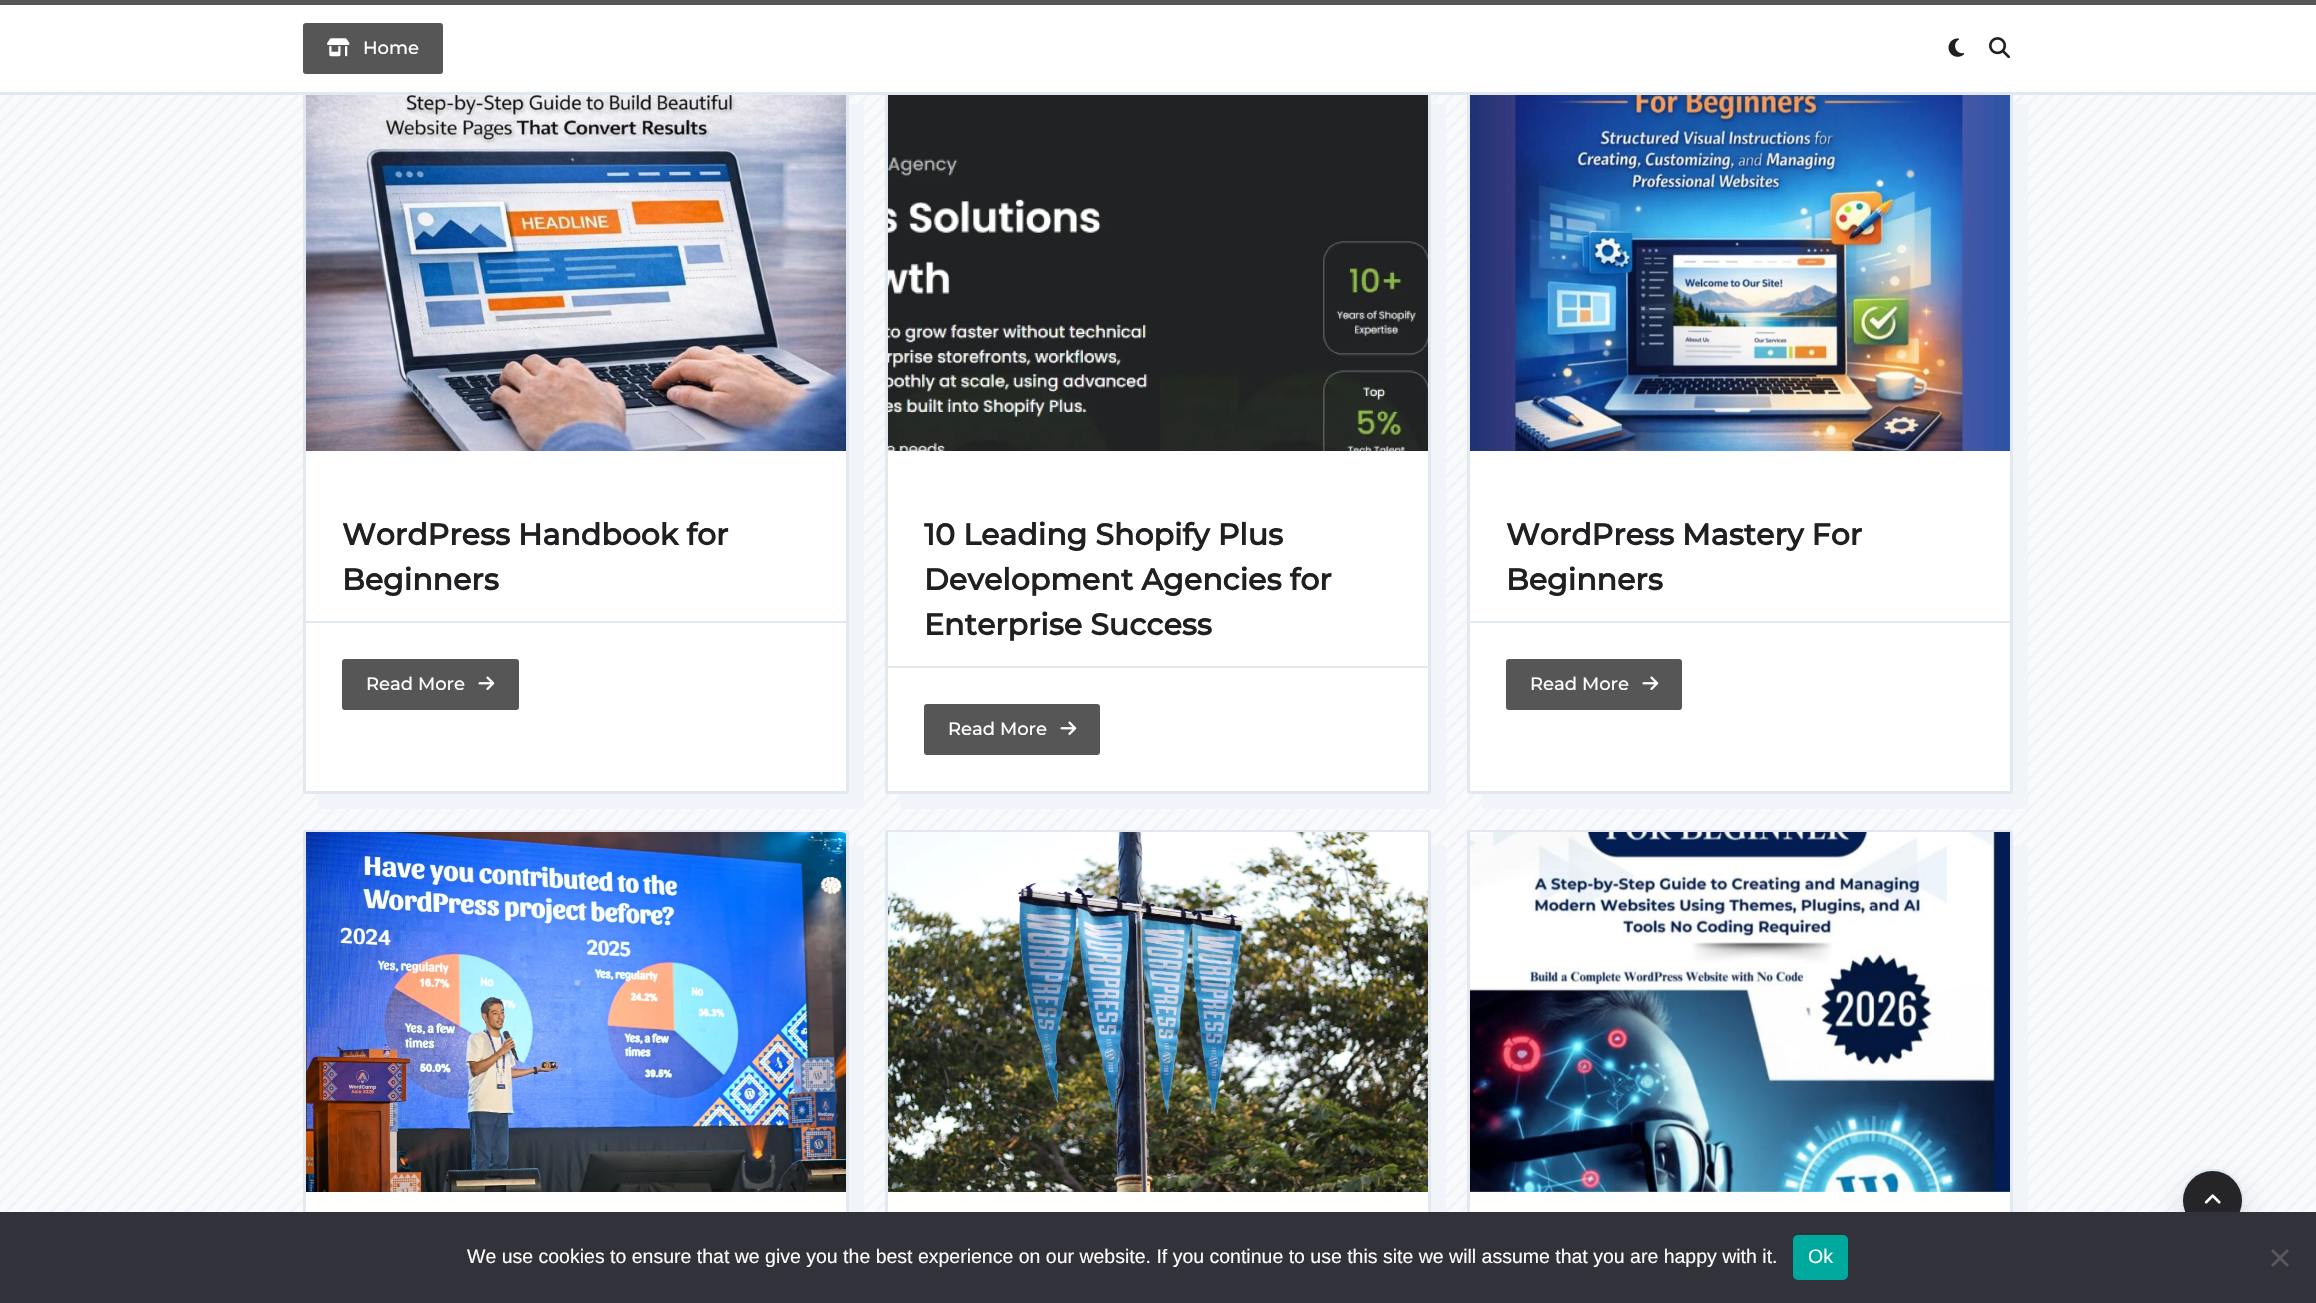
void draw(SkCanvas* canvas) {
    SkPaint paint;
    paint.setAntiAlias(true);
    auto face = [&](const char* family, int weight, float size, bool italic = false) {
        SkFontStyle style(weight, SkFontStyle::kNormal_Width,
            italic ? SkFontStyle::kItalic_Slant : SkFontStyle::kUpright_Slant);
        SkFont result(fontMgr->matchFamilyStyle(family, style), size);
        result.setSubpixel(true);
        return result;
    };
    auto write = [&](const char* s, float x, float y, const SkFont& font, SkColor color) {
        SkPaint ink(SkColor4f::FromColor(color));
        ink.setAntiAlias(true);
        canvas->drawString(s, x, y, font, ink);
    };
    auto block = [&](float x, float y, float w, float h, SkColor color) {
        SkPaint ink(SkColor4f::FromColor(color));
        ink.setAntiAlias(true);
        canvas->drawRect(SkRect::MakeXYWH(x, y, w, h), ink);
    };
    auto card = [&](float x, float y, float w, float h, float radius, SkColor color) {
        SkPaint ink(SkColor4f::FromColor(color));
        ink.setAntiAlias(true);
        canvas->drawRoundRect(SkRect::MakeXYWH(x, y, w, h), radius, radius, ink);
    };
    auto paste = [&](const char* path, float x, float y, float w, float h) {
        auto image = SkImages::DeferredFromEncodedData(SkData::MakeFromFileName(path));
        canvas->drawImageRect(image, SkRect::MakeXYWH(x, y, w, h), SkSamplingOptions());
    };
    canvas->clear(SkColorSetRGB(248, 250, 252));
    paste("pic1.png", 0, 95, 2316, 1117);
    paint.setColor(SkColorSetRGB(241, 245, 249));
    canvas->drawPath(SkPathBuilder().moveTo(318, 794).lineTo(318, 806).cubicTo(318, 808, 319, 809, 321, 809).lineTo(861, 809).cubicTo(863, 809, 864, 808, 864, 806).lineTo(864, 107).cubicTo(864, 105, 863, 104, 861, 104).lineTo(849, 104).lineTo(849, 790).cubicTo(849, 792, 848, 794, 846, 794).close().detach(), paint);
    paint.setColor(SK_ColorWHITE);
    canvas->drawRoundRect(SkRect::MakeXYWH(304.5f, 90.5f, 543, 702), 1.5f, 1.5f, paint);
    paint.setStyle(SkPaint::kStroke_Style);
    paint.setStrokeWidth(3);
    paint.setColor(SkColorSetRGB(226, 232, 240));
    canvas->drawRoundRect(SkRect::MakeXYWH(304.5f, 90.5f, 543, 702), 1.5f, 1.5f, paint);
    paint.setStyle(SkPaint::kFill_Style);
    paint.setColor(SkColorSetRGB(241, 245, 249));
    canvas->drawPath(SkPathBuilder().moveTo(900, 794).lineTo(900, 806).cubicTo(900, 808, 901, 809, 903, 809).lineTo(1443, 809).cubicTo(1445, 809, 1446, 808, 1446, 806).lineTo(1446, 107).cubicTo(1446, 105, 1445, 104, 1443, 104).lineTo(1431, 104).lineTo(1431, 790).cubicTo(1431, 792, 1430, 794, 1428, 794).close().detach(), paint);
    paint.setColor(SK_ColorWHITE);
    canvas->drawRoundRect(SkRect::MakeXYWH(886.5f, 90.5f, 543, 702), 1.5f, 1.5f, paint);
    paint.setStyle(SkPaint::kStroke_Style);
    paint.setColor(SkColorSetRGB(226, 232, 240));
    canvas->drawRoundRect(SkRect::MakeXYWH(886.5f, 90.5f, 543, 702), 1.5f, 1.5f, paint);
    paint.setStyle(SkPaint::kFill_Style);
    paint.setColor(SkColorSetRGB(241, 245, 249));
    canvas->drawPath(SkPathBuilder().moveTo(1482, 794).lineTo(1482, 806).cubicTo(1482, 808, 1483, 809, 1485, 809).lineTo(2025, 809).cubicTo(2027, 809, 2028, 808, 2028, 806).lineTo(2028, 107).cubicTo(2028, 105, 2027, 104, 2025, 104).lineTo(2013, 104).lineTo(2013, 790).cubicTo(2013, 792, 2012, 794, 2010, 794).close().detach(), paint);
    paint.setColor(SK_ColorWHITE);
    canvas->drawRoundRect(SkRect::MakeXYWH(1468.5f, 90.5f, 543, 702), 1.5f, 1.5f, paint);
    paint.setStyle(SkPaint::kStroke_Style);
    paint.setColor(SkColorSetRGB(226, 232, 240));
    canvas->drawRoundRect(SkRect::MakeXYWH(1468.5f, 90.5f, 543, 702), 1.5f, 1.5f, paint);
    block(0, 5, 2316, 87, SK_ColorWHITE);
    block(0, 0, 2316, 5, SkColorSetRGB(86, 86, 86));
    block(0, 92, 2316, 3, SkColorSetRGB(226, 232, 240));
    paint.setStyle(SkPaint::kFill_Style);
    paint.setColor(SkColorSetRGB(86, 86, 86));
    canvas->drawRoundRect(SkRect::MakeXYWH(304, 24, 138, 49), 2, 2, paint);
    paint.setStyle(SkPaint::kStroke_Style);
    paint.setStrokeWidth(2);
    canvas->drawRoundRect(SkRect::MakeXYWH(304, 24, 138, 49), 2, 2, paint);
    paste("pic2.png", 327, 38, 23, 19);
    auto kFont1 = face("Montserrat", 100, 18);
    write("Home", 363, 54, kFont1, SK_ColorWHITE);
    paste("pic3.png", 1948, 38, 17, 19);
    paste("pic4.png", 1989, 37, 21, 22);
    paste("pic5.png", 306, 95, 540, 356);
    auto kFont2 = face("Montserrat", 700, 30);
    write("WordPress Handbook for", 342, 545, kFont2, SkColorSetRGB(32, 32, 35));
    write("Beginners", 342, 590, kFont2, SkColorSetRGB(32, 32, 35));
    block(306, 621, 540, 2, SkColorSetRGB(226, 232, 240));
    paint.setStyle(SkPaint::kFill_Style);
    canvas->drawRoundRect(SkRect::MakeXYWH(343, 660, 175, 49), 2, 2, paint);
    paint.setStyle(SkPaint::kStroke_Style);
    canvas->drawRoundRect(SkRect::MakeXYWH(343, 660, 175, 49), 2, 2, paint);
    write("Read More", 366, 690, kFont1, SK_ColorWHITE);
    paste("pic6.png", 478, 676, 17, 14);
    paste("pic7.png", 888, 95, 540, 356);
    write("10 Leading Shopify Plus", 924, 545, kFont2, SkColorSetRGB(32, 32, 35));
    write("Development Agencies for", 924, 590, kFont2, SkColorSetRGB(32, 32, 35));
    write("Enterprise Success", 924, 635, kFont2, SkColorSetRGB(32, 32, 35));
    block(888, 666, 540, 2, SkColorSetRGB(226, 232, 240));
    paint.setStyle(SkPaint::kFill_Style);
    canvas->drawRoundRect(SkRect::MakeXYWH(925, 705, 174, 49), 2, 2, paint);
    paint.setStyle(SkPaint::kStroke_Style);
    canvas->drawRoundRect(SkRect::MakeXYWH(925, 705, 174, 49), 2, 2, paint);
    write("Read More", 948, 735, kFont1, SK_ColorWHITE);
    paste("pic6.png", 1060, 721, 17, 14);
    paste("pic8.png", 1470, 95, 540, 356);
    write("WordPress Mastery For", 1506, 545, kFont2, SkColorSetRGB(32, 32, 35));
    write("Beginners", 1506, 590, kFont2, SkColorSetRGB(32, 32, 35));
    block(1470, 621, 540, 2, SkColorSetRGB(226, 232, 240));
    paint.setStyle(SkPaint::kFill_Style);
    canvas->drawRoundRect(SkRect::MakeXYWH(1507, 660, 174, 49), 2, 2, paint);
    paint.setStyle(SkPaint::kStroke_Style);
    canvas->drawRoundRect(SkRect::MakeXYWH(1507, 660, 174, 49), 2, 2, paint);
    write("Read More", 1530, 690, kFont1, SK_ColorWHITE);
    paste("pic6.png", 1642, 676, 17, 14);
    paint.setStyle(SkPaint::kFill_Style);
    paint.setColor(SkColorSetRGB(241, 245, 249));
    canvas->drawPath(SkPathBuilder().moveTo(318, 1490).lineTo(318, 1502).cubicTo(318, 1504, 319, 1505, 321, 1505).lineTo(861, 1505).cubicTo(863, 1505, 864, 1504, 864, 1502).lineTo(864, 848).cubicTo(864, 846, 863, 845, 861, 845).lineTo(849, 845).lineTo(849, 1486).cubicTo(849, 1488, 848, 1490, 846, 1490).close().detach(), paint);
    paint.setColor(SK_ColorWHITE);
    canvas->drawRoundRect(SkRect::MakeXYWH(304.5f, 831.5f, 543, 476), 1.5f, 1.5f, paint);
    paint.setStyle(SkPaint::kStroke_Style);
    paint.setStrokeWidth(3);
    paint.setColor(SkColorSetRGB(226, 232, 240));
    canvas->drawRoundRect(SkRect::MakeXYWH(304.5f, 831.5f, 543, 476), 1.5f, 1.5f, paint);
    paste("pic9.png", 306, 832, 540, 360);
    paint.setStyle(SkPaint::kFill_Style);
    paint.setColor(SkColorSetRGB(241, 245, 249));
    canvas->drawPath(SkPathBuilder().moveTo(900, 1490).lineTo(900, 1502).cubicTo(900, 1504, 901, 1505, 903, 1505).lineTo(1443, 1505).cubicTo(1445, 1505, 1446, 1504, 1446, 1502).lineTo(1446, 848).cubicTo(1446, 846, 1445, 845, 1443, 845).lineTo(1431, 845).lineTo(1431, 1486).cubicTo(1431, 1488, 1430, 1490, 1428, 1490).close().detach(), paint);
    paint.setColor(SK_ColorWHITE);
    canvas->drawRoundRect(SkRect::MakeXYWH(886.5f, 831.5f, 543, 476), 1.5f, 1.5f, paint);
    paint.setStyle(SkPaint::kStroke_Style);
    paint.setColor(SkColorSetRGB(226, 232, 240));
    canvas->drawRoundRect(SkRect::MakeXYWH(886.5f, 831.5f, 543, 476), 1.5f, 1.5f, paint);
    paste("pic10.png", 888, 832, 540, 360);
    paint.setStyle(SkPaint::kFill_Style);
    paint.setColor(SkColorSetRGB(241, 245, 249));
    canvas->drawPath(SkPathBuilder().moveTo(1482, 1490).lineTo(1482, 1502).cubicTo(1482, 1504, 1483, 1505, 1485, 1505).lineTo(2025, 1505).cubicTo(2027, 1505, 2028, 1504, 2028, 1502).lineTo(2028, 848).cubicTo(2028, 846, 2027, 845, 2025, 845).lineTo(2013, 845).lineTo(2013, 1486).cubicTo(2013, 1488, 2012, 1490, 2010, 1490).close().detach(), paint);
    paint.setColor(SK_ColorWHITE);
    canvas->drawRoundRect(SkRect::MakeXYWH(1468.5f, 831.5f, 543, 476), 1.5f, 1.5f, paint);
    paint.setStyle(SkPaint::kStroke_Style);
    paint.setColor(SkColorSetRGB(226, 232, 240));
    canvas->drawRoundRect(SkRect::MakeXYWH(1468.5f, 831.5f, 543, 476), 1.5f, 1.5f, paint);
    paste("pic11.png", 1470, 832, 540, 360);
    paint.setStyle(SkPaint::kFill_Style);
    paint.setColor(SkColorSetARGB(38, 44, 62, 80));
    paint.setMaskFilter(SkMaskFilter::MakeBlur(kNormal_SkBlurStyle, 15));
    canvas->drawRoundRect(SkRect::MakeXYWH(2181, 1184, 63, 63), 31.5f, 31.5f, paint);
    paint.setMaskFilter(nullptr);
    paint.setColor(SkColorSetRGB(37, 37, 40));
    canvas->drawCircle(2212.5f, 1200.5f, 30.5f, paint);
    paint.setStyle(SkPaint::kStroke_Style);
    paint.setStrokeWidth(2);
    paint.setColor(SkColorSetRGB(226, 232, 240));
    canvas->drawCircle(2212.5f, 1200.5f, 30.5f, paint);
    paste("pic12.png", 2204, 1194, 17, 10);
    block(0, 1212, 2316, 91, SkColorSetRGB(50, 50, 58));
    auto kFont3 = face("Liberation Sans", 400, 19.5f);
    write("We use cookies to ensure that we give you the best experience on our website. If you continue to use this site we will assume that you are happy with it.", 467, 1263, kFont3, SK_ColorWHITE);
    card(1793, 1235, 55, 45, 5, SkColorSetRGB(0, 169, 157));
    write("Ok", 1808, 1263, kFont3, SK_ColorWHITE);
    paint.setStyle(SkPaint::kFill_Style);
    paint.setColor(SkColorSetRGB(89, 89, 93));
    canvas->drawPath(SkPathBuilder().moveTo(2287, 1249).lineTo(2289, 1251).lineTo(2273, 1267).lineTo(2271, 1265).close().detach(), paint);
    canvas->drawPath(SkPathBuilder().moveTo(2271, 1251).lineTo(2273, 1249).lineTo(2289, 1265).lineTo(2287, 1267).close().detach(), paint);
}
